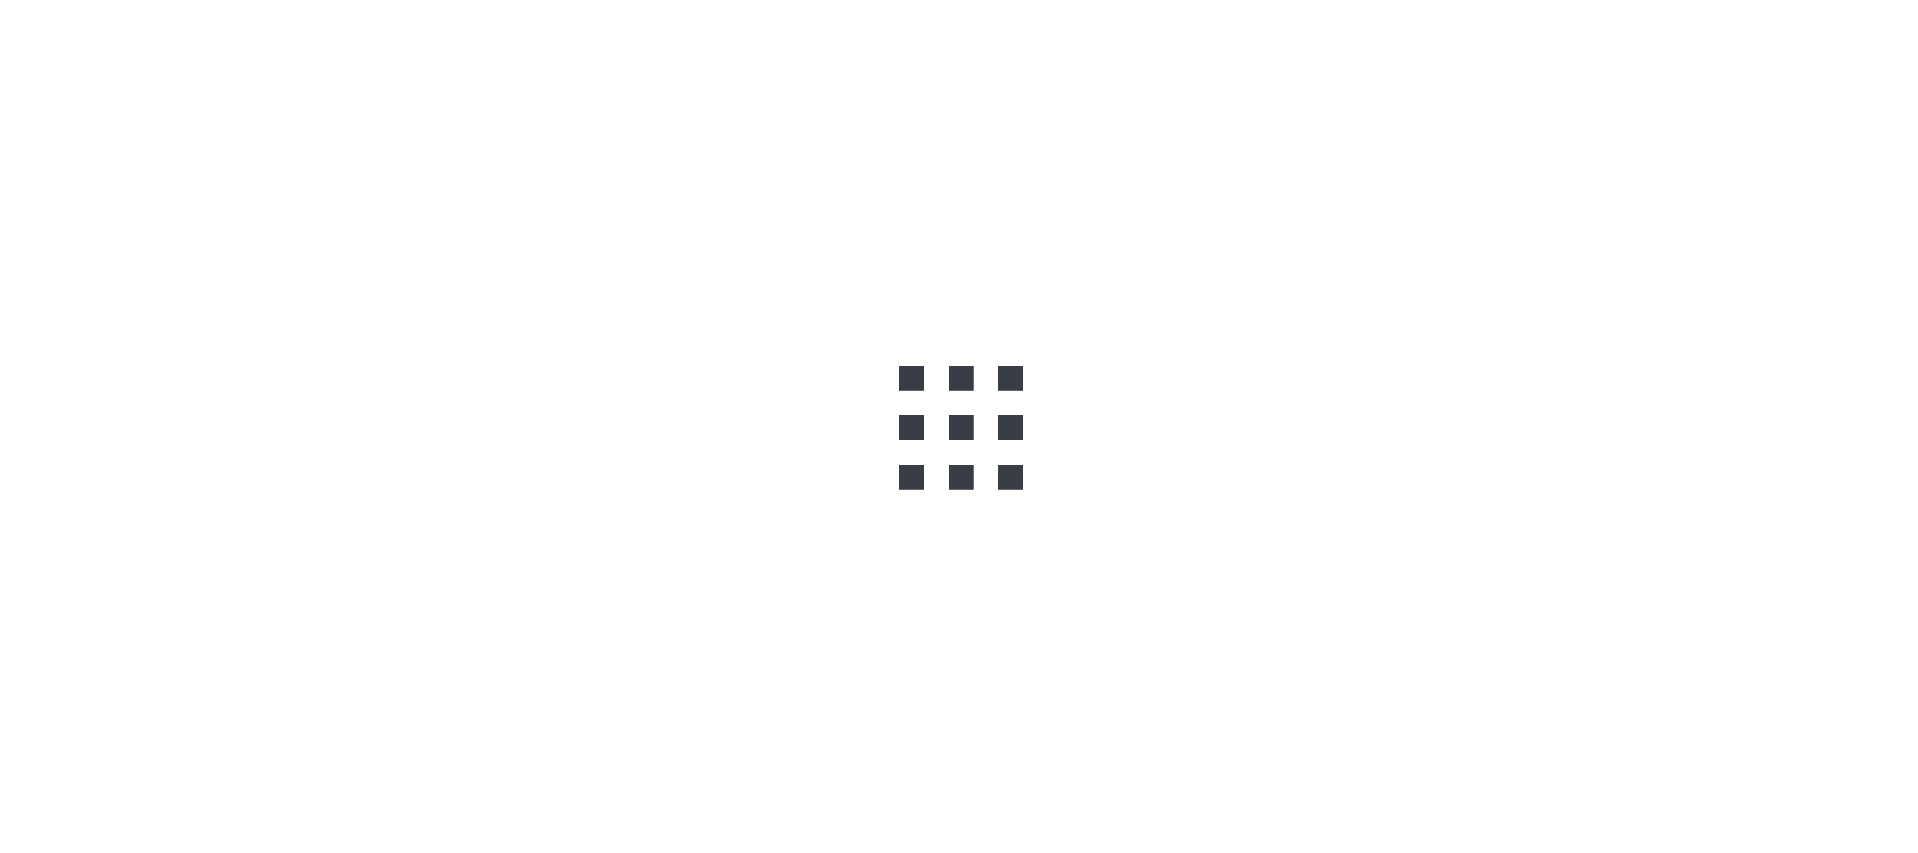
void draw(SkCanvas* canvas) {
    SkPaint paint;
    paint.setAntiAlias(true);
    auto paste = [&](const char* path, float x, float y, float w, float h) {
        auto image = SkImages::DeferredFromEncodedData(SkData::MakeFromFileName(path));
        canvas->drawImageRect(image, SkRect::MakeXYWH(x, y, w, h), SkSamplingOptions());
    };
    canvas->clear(SK_ColorWHITE);
    paste("pic1.png", 899, 366, 124, 124);
    paste("pic2.png", 899, 366, 124, 124);
}
